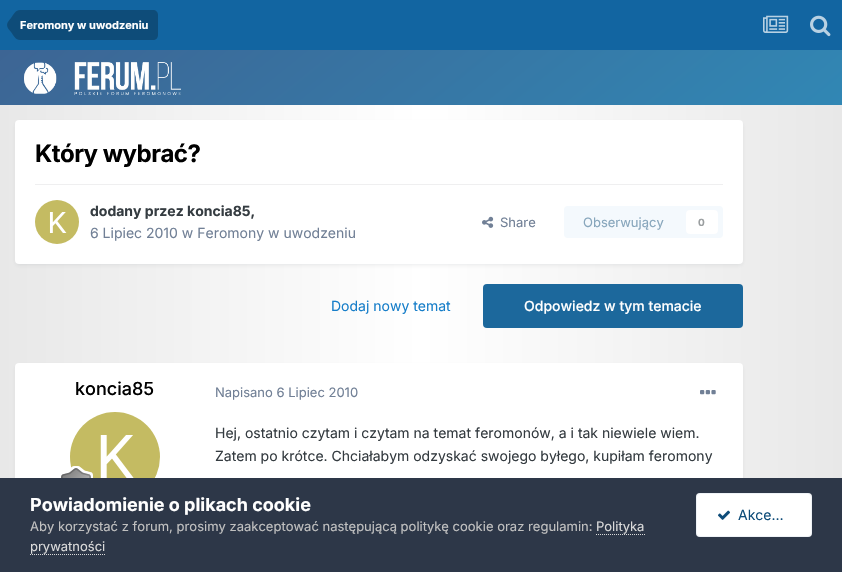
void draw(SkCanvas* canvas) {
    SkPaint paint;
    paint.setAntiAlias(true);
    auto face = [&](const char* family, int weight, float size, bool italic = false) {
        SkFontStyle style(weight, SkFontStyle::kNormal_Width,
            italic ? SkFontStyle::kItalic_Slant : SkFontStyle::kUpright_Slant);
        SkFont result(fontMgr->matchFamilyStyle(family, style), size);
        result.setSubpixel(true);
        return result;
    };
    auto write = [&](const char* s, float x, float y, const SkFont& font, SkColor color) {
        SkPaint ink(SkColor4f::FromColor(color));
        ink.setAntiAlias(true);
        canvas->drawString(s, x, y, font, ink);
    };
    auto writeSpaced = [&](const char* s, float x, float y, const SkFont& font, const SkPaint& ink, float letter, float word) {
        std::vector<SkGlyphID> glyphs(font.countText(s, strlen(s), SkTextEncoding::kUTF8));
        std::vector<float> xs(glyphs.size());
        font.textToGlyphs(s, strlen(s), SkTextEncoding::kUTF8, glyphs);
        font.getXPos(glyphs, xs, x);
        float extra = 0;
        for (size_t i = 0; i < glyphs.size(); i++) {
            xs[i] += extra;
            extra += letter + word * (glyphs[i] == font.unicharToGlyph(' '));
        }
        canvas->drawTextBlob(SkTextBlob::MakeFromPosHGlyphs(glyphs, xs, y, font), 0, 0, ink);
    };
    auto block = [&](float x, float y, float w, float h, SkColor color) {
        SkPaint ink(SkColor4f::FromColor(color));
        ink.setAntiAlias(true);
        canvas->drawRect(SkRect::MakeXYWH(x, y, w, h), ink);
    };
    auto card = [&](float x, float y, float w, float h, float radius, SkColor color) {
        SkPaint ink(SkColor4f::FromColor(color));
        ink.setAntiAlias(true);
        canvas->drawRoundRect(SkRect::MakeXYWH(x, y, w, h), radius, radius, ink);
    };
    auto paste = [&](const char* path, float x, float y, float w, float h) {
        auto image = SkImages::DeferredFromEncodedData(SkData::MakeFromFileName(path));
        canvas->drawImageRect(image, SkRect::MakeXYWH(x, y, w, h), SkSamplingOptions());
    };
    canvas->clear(SK_ColorWHITE);
    {
        const SkColor colors[] = {SkColorSetRGB(232, 232, 232), SK_ColorWHITE, SkColorSetRGB(232, 232, 232)};
        const float stops[] = {0, 0.5f, 1};
        const SkPoint ends[] = {{0, 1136}, {842, 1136}};
        paint.setShader(SkGradientShader::MakeLinear(ends, colors, stops, 3, SkTileMode::kClamp));
        paint.setAlpha(255);
    }
    canvas->drawRect(SkRect::MakeXYWH(0, 105, 842, 373), paint);
    block(0, 0, 842, 50, SkColorSetRGB(18, 101, 161));
    paint.setShader(nullptr);
    paint.setColor(SkColorSetRGB(14, 76, 121));
    canvas->drawPath(SkPathBuilder().moveTo(20, 10).lineTo(153, 10).cubicTo(156, 10, 158, 12, 158, 15).lineTo(158, 35).cubicTo(158, 38, 156, 40, 153, 40).lineTo(20, 40).close().detach(), paint);
    canvas->drawPath(SkPathBuilder().moveTo(20, 25).lineTo(20, 40).cubicTo(15.5f, 40, 13.5f, 35.5f, 11, 32).cubicTo(9.5f, 30, 7, 28, 7, 25).close().moveTo(20, 25).lineTo(7, 25).cubicTo(7, 22, 9.5f, 20, 11, 18).cubicTo(13.5f, 14.5f, 15.5f, 10, 20, 10).close().detach(), paint);
    auto kFont1 = face("Inter", 700, 11);
    write("Feromony w uwodzeniu", 20, 29, kFont1, SK_ColorWHITE);
    paste("pic1.png", 763, 15, 26, 18);
    paste("pic2.png", 810, 15, 21, 22);
    {
        const SkColor colors[] = {SkColorSetRGB(61, 101, 148), SkColorSetRGB(40, 160, 204)};
        const float stops[] = {0, 1};
        const SkPoint ends[] = {{241, -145}, {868, 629}};
        paint.setShader(SkGradientShader::MakeLinear(ends, colors, stops, 2, SkTileMode::kClamp));
        paint.setAlpha(255);
    }
    canvas->drawRect(SkRect::MakeXYWH(0, 50, 842, 55), paint);
    paste("pic3.png", 24, 62, 157, 33);
    paint.setShader(nullptr);
    paint.setColor(SkColorSetARGB(26, 45, 55, 72));
    paint.setMaskFilter(SkMaskFilter::MakeBlur(kNormal_SkBlurStyle, 2));
    canvas->drawRoundRect(SkRect::MakeXYWH(16, 123, 726, 142), 3, 3, paint);
    paint.setMaskFilter(nullptr);
    card(15, 120, 728, 144, 4, SK_ColorWHITE);
    auto kFont2 = face("Inter", 700, 24);
    paint.setColor(SK_ColorBLACK);
    writeSpaced("Który wybrać?", 35, 162, kFont2, paint, -0.5f, 0);
    block(35, 184, 688, 1, SkColorSetRGB(239, 239, 240));
    paste("pic4.png", 35, 200, 44, 44);
    auto kFont3 = face("Inter", 700, 14);
    write("dodany przez koncia85,", 90, 216, kFont3, SkColorSetRGB(53, 60, 65));
    auto kFont4 = face("Inter", 400, 14);
    write("6 Lipiec 2010 w Feromony w uwodzeniu", 90, 238, kFont4, SkColorSetRGB(113, 128, 150));
    paste("pic5.png", 482, 216, 12, 12);
    auto kFont5 = face("Inter", 400, 13);
    write("Share", 500, 227, kFont5, SkColorSetRGB(113, 128, 150));
    card(564, 206, 159, 32, 4, SkColorSetRGB(244, 249, 253));
    write("Obserwujący", 583, 227, kFont5, SkColorSetRGB(135, 166, 188));
    card(686, 210, 32, 24, 4, SK_ColorWHITE);
    auto kFont6 = face("Inter", 700, 10);
    write("0", 698, 226, kFont6, SkColorSetRGB(154, 158, 160));
    write("Dodaj nowy temat", 331, 311, kFont4, SkColorSetRGB(23, 126, 201));
    card(483, 284, 260, 44, 4, SkColorSetRGB(28, 104, 156));
    auto kFont7 = face("Inter", 500, 14);
    write("Odpowiedz w tym temacie", 524, 311, kFont7, SK_ColorWHITE);
    paint.setColor(SkColorSetARGB(26, 45, 55, 72));
    paint.setMaskFilter(SkMaskFilter::MakeBlur(kNormal_SkBlurStyle, 2));
    canvas->drawRoundRect(SkRect::MakeXYWH(16, 366, 726, 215), 3, 3, paint);
    paint.setMaskFilter(nullptr);
    card(15, 363, 728, 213, 4, SK_ColorWHITE);
    auto kFont8 = face("Inter", 500, 18);
    write("koncia85", 75, 395, kFont8, SK_ColorBLACK);
    paste("pic6.png", 70, 412, 90, 66);
    paste("pic7.png", 59, 466, 34, 12);
    write("Napisano 6 Lipiec 2010", 215, 397, kFont5, SkColorSetRGB(113, 128, 150));
    paste("pic8.png", 700, 390, 16, 5);
    write("Hej, ostatnio czytam i czytam na temat feromonów, a i tak niewiele wiem.", 215, 438, kFont4, SkColorSetRGB(53, 60, 65));
    write("Zatem po krótce. Chciałabym odzyskać swojego byłego, kupiłam feromony", 215, 461, kFont4, SkColorSetRGB(53, 60, 65));
    block(0, 478, 842, 94, SkColorSetRGB(45, 55, 72));
    auto kFont9 = face("Inter", 700, 18);
    write("Powiadomienie o plikach cookie", 30, 511, kFont9, SK_ColorWHITE);
    write("Aby korzystać z forum, prosimy zaakceptować następującą politykę cookie oraz regulamin:", 30, 531, kFont5, SkColorSetRGB(192, 192, 192));
    write("Polityka", 596, 531, kFont5, SkColorSetRGB(218, 218, 218));
    paint.setStyle(SkPaint::kStroke_Style);
    paint.setStrokeWidth(1);
    paint.setColor(SkColorSetRGB(218, 218, 218));
    paint.setPathEffect(SkDashPathEffect::Make({{1, 1}}, 0));
    canvas->drawPath(SkPathBuilder().moveTo(596, 534.5f).lineTo(645, 534.5f).detach(), paint);
    paint.setPathEffect(nullptr);
    write("prywatności", 30, 551, kFont5, SkColorSetRGB(218, 218, 218));
    paint.setPathEffect(SkDashPathEffect::Make({{1, 1}}, 0));
    canvas->drawPath(SkPathBuilder().moveTo(30, 554.5f).lineTo(105, 554.5f).detach(), paint);
    paint.setPathEffect(nullptr);
    card(696, 493, 116, 44, 4, SK_ColorWHITE);
    paint.setColor(SkColorSetARGB(18, 14, 76, 121));
    canvas->drawRoundRect(SkRect::MakeXYWH(696.5f, 493.5f, 115, 43), 3.5f, 3.5f, paint);
    paste("pic9.png", 718, 510, 12, 10);
    write("Akce…", 738, 520, kFont4, SkColorSetRGB(14, 76, 121));
}
